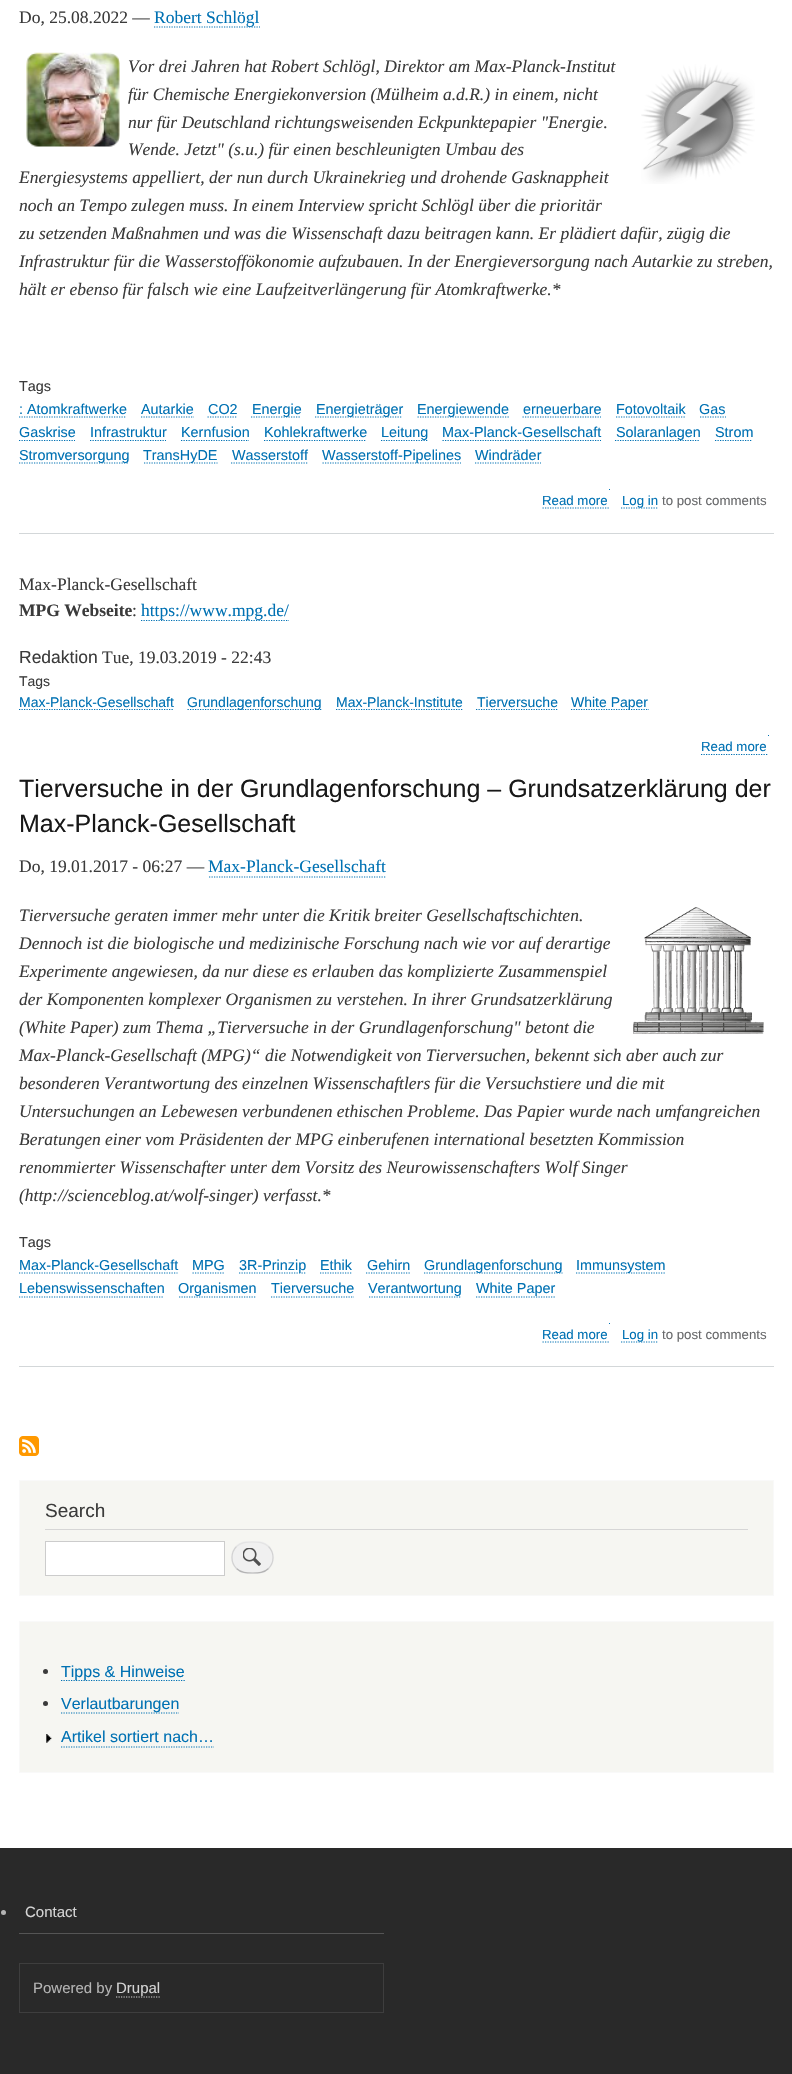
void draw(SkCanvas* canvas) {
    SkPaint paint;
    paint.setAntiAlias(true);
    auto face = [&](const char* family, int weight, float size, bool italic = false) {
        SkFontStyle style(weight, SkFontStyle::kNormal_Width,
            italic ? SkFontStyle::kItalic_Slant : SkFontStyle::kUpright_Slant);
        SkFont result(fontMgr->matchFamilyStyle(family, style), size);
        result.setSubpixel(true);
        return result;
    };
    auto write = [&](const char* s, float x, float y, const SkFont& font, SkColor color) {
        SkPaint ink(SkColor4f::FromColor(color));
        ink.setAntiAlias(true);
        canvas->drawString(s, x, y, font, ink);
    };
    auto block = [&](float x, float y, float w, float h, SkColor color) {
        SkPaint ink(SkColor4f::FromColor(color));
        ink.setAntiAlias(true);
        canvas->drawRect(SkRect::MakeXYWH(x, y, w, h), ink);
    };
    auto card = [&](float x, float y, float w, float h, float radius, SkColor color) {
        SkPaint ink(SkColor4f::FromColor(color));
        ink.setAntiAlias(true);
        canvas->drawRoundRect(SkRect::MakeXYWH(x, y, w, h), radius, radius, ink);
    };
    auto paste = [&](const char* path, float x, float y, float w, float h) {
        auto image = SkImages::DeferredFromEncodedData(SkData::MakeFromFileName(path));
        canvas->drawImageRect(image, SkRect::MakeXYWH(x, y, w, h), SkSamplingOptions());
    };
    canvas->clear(SK_ColorWHITE);
    block(19, 533, 755, 1, SkColorSetRGB(211, 215, 217));
    auto kFont1 = face("Liberation Serif", 400, 17.5f);
    write("Do, 25.08.2022 —", 19, 23, kFont1, SkColorSetRGB(59, 59, 59));
    paint.setStyle(SkPaint::kStroke_Style);
    paint.setStrokeWidth(1.2f);
    paint.setColor(SkColorSetRGB(0, 113, 179));
    paint.setPathEffect(SkDashPathEffect::Make({{1.25f, 1.25f}}, 0));
    canvas->drawPath(SkPathBuilder().moveTo(154, 27).lineTo(260, 27).detach(), paint);
    paint.setPathEffect(nullptr);
    write("Robert Schlögl", 154, 23, kFont1, SkColorSetRGB(0, 113, 179));
    paste("pic1.png", 26, 52, 94, 95);
    auto kFont2 = face("Liberation Serif", 400, 17.5f, true);
    write("Vor drei Jahren hat Robert Schlögl, Direktor am Max-Planck-Institut", 128, 72, kFont2, SkColorSetRGB(59, 59, 59));
    write("für Chemische Energiekonversion (Mülheim a.d.R.) in einem, nicht", 128, 100, kFont2, SkColorSetRGB(59, 59, 59));
    write("nur für Deutschland richtungsweisenden Eckpunktepapier \"Energie.", 128, 128, kFont2, SkColorSetRGB(59, 59, 59));
    write("Wende. Jetzt\" (s.u.) für einen beschleunigten Umbau des", 128, 155, kFont2, SkColorSetRGB(59, 59, 59));
    write("Energiesystems appelliert, der nun durch Ukrainekrieg und drohende Gasknappheit", 19, 183, kFont2, SkColorSetRGB(59, 59, 59));
    write("noch an Tempo zulegen muss. In einem Interview spricht Schlögl über die prioritär", 19, 211, kFont2, SkColorSetRGB(59, 59, 59));
    write("zu setzenden Maßnahmen und was die Wissenschaft dazu beitragen kann. Er plädiert dafür, zügig die", 19, 239, kFont2, SkColorSetRGB(59, 59, 59));
    write("Infrastruktur für die Wasserstoffökonomie aufzubauen. In der Energieversorgung nach Autarkie zu streben,", 19, 267, kFont2, SkColorSetRGB(59, 59, 59));
    write("hält er ebenso für falsch wie eine Laufzeitverlängerung für Atomkraftwerke.*", 19, 295, kFont2, SkColorSetRGB(59, 59, 59));
    paste("pic2.png", 641, 64, 114, 120);
    auto kFont3 = face("Liberation Sans", 400, 14.4f);
    write("Tags", 19, 391, kFont3, SkColorSetRGB(59, 59, 59));
    write(": Atomkraftwerke", 19, 414, kFont3, SkColorSetRGB(0, 113, 179));
    paint.setPathEffect(SkDashPathEffect::Make({{1.25f, 1.25f}}, 0));
    canvas->drawPath(SkPathBuilder().moveTo(19, 417).lineTo(126, 417).detach(), paint);
    paint.setPathEffect(nullptr);
    write("Autarkie", 141, 414, kFont3, SkColorSetRGB(0, 113, 179));
    paint.setPathEffect(SkDashPathEffect::Make({{1.25f, 1.25f}}, 0));
    canvas->drawPath(SkPathBuilder().moveTo(141, 417).lineTo(194, 417).detach(), paint);
    paint.setPathEffect(nullptr);
    write("CO2", 208, 414, kFont3, SkColorSetRGB(0, 113, 179));
    paint.setPathEffect(SkDashPathEffect::Make({{1.25f, 1.25f}}, 0));
    canvas->drawPath(SkPathBuilder().moveTo(207.5f, 417).lineTo(237.5f, 417).detach(), paint);
    paint.setPathEffect(nullptr);
    paint.setPathEffect(SkDashPathEffect::Make({{1.25f, 1.25f}}, 0));
    canvas->drawPath(SkPathBuilder().moveTo(251, 417).lineTo(301, 417).detach(), paint);
    paint.setPathEffect(nullptr);
    write("Energie", 252, 414, kFont3, SkColorSetRGB(0, 113, 179));
    paint.setPathEffect(SkDashPathEffect::Make({{1.25f, 1.25f}}, 0));
    canvas->drawPath(SkPathBuilder().moveTo(315, 417).lineTo(402.5f, 417).detach(), paint);
    paint.setPathEffect(nullptr);
    write("Energieträger", 316, 414, kFont3, SkColorSetRGB(0, 113, 179));
    paint.setPathEffect(SkDashPathEffect::Make({{1.25f, 1.25f}}, 0));
    canvas->drawPath(SkPathBuilder().moveTo(417.5f, 417).lineTo(509, 417).detach(), paint);
    paint.setPathEffect(nullptr);
    write("Energiewende", 417, 414, kFont3, SkColorSetRGB(0, 113, 179));
    write("erneuerbare", 523, 414, kFont3, SkColorSetRGB(0, 113, 179));
    paint.setPathEffect(SkDashPathEffect::Make({{1.25f, 1.25f}}, 0));
    canvas->drawPath(SkPathBuilder().moveTo(522.5f, 417).lineTo(601, 417).detach(), paint);
    paint.setPathEffect(nullptr);
    write("Fotovoltaik", 616, 414, kFont3, SkColorSetRGB(0, 113, 179));
    paint.setPathEffect(SkDashPathEffect::Make({{1.25f, 1.25f}}, 0));
    canvas->drawPath(SkPathBuilder().moveTo(616, 417).lineTo(685, 417).detach(), paint);
    paint.setPathEffect(nullptr);
    write("Gas", 699, 414, kFont3, SkColorSetRGB(0, 113, 179));
    paint.setPathEffect(SkDashPathEffect::Make({{1.25f, 1.25f}}, 0));
    canvas->drawPath(SkPathBuilder().moveTo(700, 417).lineTo(726, 417).detach(), paint);
    paint.setPathEffect(nullptr);
    write("Gaskrise", 19, 437, kFont3, SkColorSetRGB(0, 113, 179));
    paint.setPathEffect(SkDashPathEffect::Make({{1.25f, 1.25f}}, 0));
    canvas->drawPath(SkPathBuilder().moveTo(19, 440.5f).lineTo(75, 440.5f).detach(), paint);
    paint.setPathEffect(nullptr);
    write("Infrastruktur", 90, 437, kFont3, SkColorSetRGB(0, 113, 179));
    paint.setPathEffect(SkDashPathEffect::Make({{1.25f, 1.25f}}, 0));
    canvas->drawPath(SkPathBuilder().moveTo(90, 440.5f).lineTo(166, 440.5f).detach(), paint);
    paint.setPathEffect(nullptr);
    write("Kernfusion", 181, 437, kFont3, SkColorSetRGB(0, 113, 179));
    paint.setPathEffect(SkDashPathEffect::Make({{1.25f, 1.25f}}, 0));
    canvas->drawPath(SkPathBuilder().moveTo(181, 440.5f).lineTo(249, 440.5f).detach(), paint);
    paint.setPathEffect(nullptr);
    write("Kohlekraftwerke", 264, 437, kFont3, SkColorSetRGB(0, 113, 179));
    paint.setPathEffect(SkDashPathEffect::Make({{1.25f, 1.25f}}, 0));
    canvas->drawPath(SkPathBuilder().moveTo(264, 440.5f).lineTo(366, 440.5f).detach(), paint);
    paint.setPathEffect(nullptr);
    paint.setPathEffect(SkDashPathEffect::Make({{1.25f, 1.25f}}, 0));
    canvas->drawPath(SkPathBuilder().moveTo(381, 440.5f).lineTo(427.5f, 440.5f).detach(), paint);
    paint.setPathEffect(nullptr);
    write("Leitung", 381, 437, kFont3, SkColorSetRGB(0, 113, 179));
    write("Max-Planck-Gesellschaft", 442, 437, kFont3, SkColorSetRGB(0, 113, 179));
    paint.setPathEffect(SkDashPathEffect::Make({{1.25f, 1.25f}}, 0));
    canvas->drawPath(SkPathBuilder().moveTo(442.5f, 440.5f).lineTo(601, 440.5f).detach(), paint);
    paint.setPathEffect(nullptr);
    paint.setPathEffect(SkDashPathEffect::Make({{1.25f, 1.25f}}, 0));
    canvas->drawPath(SkPathBuilder().moveTo(615, 440.5f).lineTo(700, 440.5f).detach(), paint);
    paint.setPathEffect(nullptr);
    write("Solaranlagen", 616, 437, kFont3, SkColorSetRGB(0, 113, 179));
    write("Strom", 715, 437, kFont3, SkColorSetRGB(0, 113, 179));
    paint.setPathEffect(SkDashPathEffect::Make({{1.25f, 1.25f}}, 0));
    canvas->drawPath(SkPathBuilder().moveTo(715, 440.5f).lineTo(752.5f, 440.5f).detach(), paint);
    paint.setPathEffect(nullptr);
    paint.setPathEffect(SkDashPathEffect::Make({{1.25f, 1.25f}}, 0));
    canvas->drawPath(SkPathBuilder().moveTo(19, 463).lineTo(129, 463).detach(), paint);
    paint.setPathEffect(nullptr);
    write("Stromversorgung", 19, 460, kFont3, SkColorSetRGB(0, 113, 179));
    paint.setPathEffect(SkDashPathEffect::Make({{1.25f, 1.25f}}, 0));
    canvas->drawPath(SkPathBuilder().moveTo(144, 463).lineTo(217.5f, 463).detach(), paint);
    paint.setPathEffect(nullptr);
    write("TransHyDE", 143, 460, kFont3, SkColorSetRGB(0, 113, 179));
    write("Wasserstoff", 232, 460, kFont3, SkColorSetRGB(0, 113, 179));
    paint.setPathEffect(SkDashPathEffect::Make({{1.25f, 1.25f}}, 0));
    canvas->drawPath(SkPathBuilder().moveTo(231, 463).lineTo(307.5f, 463).detach(), paint);
    paint.setPathEffect(nullptr);
    paint.setPathEffect(SkDashPathEffect::Make({{1.25f, 1.25f}}, 0));
    canvas->drawPath(SkPathBuilder().moveTo(322.5f, 463).lineTo(461, 463).detach(), paint);
    paint.setPathEffect(nullptr);
    write("Wasserstoff-Pipelines", 322, 460, kFont3, SkColorSetRGB(0, 113, 179));
    write("Windräder", 475, 460, kFont3, SkColorSetRGB(0, 113, 179));
    paint.setPathEffect(SkDashPathEffect::Make({{1.25f, 1.25f}}, 0));
    canvas->drawPath(SkPathBuilder().moveTo(475, 463).lineTo(541, 463).detach(), paint);
    paint.setPathEffect(nullptr);
    auto kFont4 = face("Liberation Sans", 400, 13.25f);
    write("Read more", 542, 505, kFont4, SkColorSetRGB(0, 113, 179));
    paint.setPathEffect(SkDashPathEffect::Make({{1.25f, 1.25f}}, 0));
    canvas->drawPath(SkPathBuilder().moveTo(542.5f, 508).lineTo(609, 508).detach(), paint);
    paint.setPathEffect(nullptr);
    block(609, 489, 1, 1, SkColorSetRGB(0, 113, 179));
    paint.setPathEffect(SkDashPathEffect::Make({{1.25f, 1.25f}}, 0));
    canvas->drawPath(SkPathBuilder().moveTo(621, 508).lineTo(657.5f, 508).detach(), paint);
    paint.setPathEffect(nullptr);
    write("Log in", 622, 505, kFont4, SkColorSetRGB(0, 113, 179));
    write("to post comments", 662, 505, kFont4, SkColorSetRGB(104, 105, 107));
    write("Max-Planck-Gesellschaft", 19, 590, kFont1, SkColorSetRGB(59, 59, 59));
    auto kFont5 = face("Liberation Serif", 700, 17.5f);
    write("MPG Webseite", 19, 616, kFont5, SkColorSetRGB(59, 59, 59));
    write(":", 132, 616, kFont1, SkColorSetRGB(59, 59, 59));
    paint.setPathEffect(SkDashPathEffect::Make({{1.25f, 1.25f}}, 0));
    canvas->drawPath(SkPathBuilder().moveTo(141, 620.5f).lineTo(289, 620.5f).detach(), paint);
    paint.setPathEffect(nullptr);
    write("https://www.mpg.de/", 141, 616, kFont1, SkColorSetRGB(0, 113, 179));
    auto kFont6 = face("Liberation Sans", 400, 17.5f);
    write("Redaktion", 19, 663, kFont6, SkColorSetRGB(59, 59, 59));
    write("Tue, 19.03.2019 - 22:43", 102, 663, kFont1, SkColorSetRGB(59, 59, 59));
    auto kFont7 = face("Liberation Sans", 400, 14);
    write("Tags", 19, 686, kFont7, SkColorSetRGB(59, 59, 59));
    write("Max-Planck-Gesellschaft", 19, 707, kFont7, SkColorSetRGB(0, 113, 179));
    paint.setPathEffect(SkDashPathEffect::Make({{1.25f, 1.25f}}, 0));
    canvas->drawPath(SkPathBuilder().moveTo(19, 709.5f).lineTo(174, 709.5f).detach(), paint);
    paint.setPathEffect(nullptr);
    paint.setPathEffect(SkDashPathEffect::Make({{1.25f, 1.25f}}, 0));
    canvas->drawPath(SkPathBuilder().moveTo(187.5f, 709.5f).lineTo(322.5f, 709.5f).detach(), paint);
    paint.setPathEffect(nullptr);
    write("Grundlagenforschung", 187, 707, kFont7, SkColorSetRGB(0, 113, 179));
    write("Max-Planck-Institute", 336, 707, kFont7, SkColorSetRGB(0, 113, 179));
    paint.setPathEffect(SkDashPathEffect::Make({{1.25f, 1.25f}}, 0));
    canvas->drawPath(SkPathBuilder().moveTo(336, 709.5f).lineTo(462.5f, 709.5f).detach(), paint);
    paint.setPathEffect(nullptr);
    write("Tierversuche", 477, 707, kFont7, SkColorSetRGB(0, 113, 179));
    paint.setPathEffect(SkDashPathEffect::Make({{1.25f, 1.25f}}, 0));
    canvas->drawPath(SkPathBuilder().moveTo(476, 709.5f).lineTo(557.5f, 709.5f).detach(), paint);
    paint.setPathEffect(nullptr);
    paint.setPathEffect(SkDashPathEffect::Make({{1.25f, 1.25f}}, 0));
    canvas->drawPath(SkPathBuilder().moveTo(571, 709.5f).lineTo(649, 709.5f).detach(), paint);
    paint.setPathEffect(nullptr);
    write("White Paper", 571, 707, kFont7, SkColorSetRGB(0, 113, 179));
    write("Read more", 701, 751, kFont4, SkColorSetRGB(0, 113, 179));
    paint.setPathEffect(SkDashPathEffect::Make({{1.25f, 1.25f}}, 0));
    canvas->drawPath(SkPathBuilder().moveTo(701, 754.5f).lineTo(767.5f, 754.5f).detach(), paint);
    paint.setPathEffect(nullptr);
    block(768, 735, 1, 1, SkColorSetRGB(0, 113, 179));
    block(19, 1366, 755, 1, SkColorSetRGB(211, 215, 217));
    auto kFont8 = face("Liberation Sans", 400, 25);
    write("Tierversuche in der Grundlagenforschung – Grundsatzerklärung der", 19, 797, kFont8, SkColorSetRGB(24, 24, 24));
    write("Max-Planck-Gesellschaft", 19, 832, kFont8, SkColorSetRGB(24, 24, 24));
    write("Do, 19.01.2017 - 06:27 —", 19, 872, kFont1, SkColorSetRGB(59, 59, 59));
    write("Max-Planck-Gesellschaft", 208, 872, kFont1, SkColorSetRGB(0, 113, 179));
    paint.setPathEffect(SkDashPathEffect::Make({{1.25f, 1.25f}}, 0));
    canvas->drawPath(SkPathBuilder().moveTo(209, 877).lineTo(386, 877).detach(), paint);
    paint.setPathEffect(nullptr);
    write("Tierversuche geraten immer mehr unter die Kritik breiter Gesellschaftschichten.", 19, 921, kFont2, SkColorSetRGB(59, 59, 59));
    paste("pic3.png", 633, 907, 131, 127);
    write("Dennoch ist die biologische und medizinische Forschung nach wie vor auf derartige", 19, 949, kFont2, SkColorSetRGB(59, 59, 59));
    write("Experimente angewiesen, da nur diese es erlauben das komplizierte Zusammenspiel", 19, 977, kFont2, SkColorSetRGB(59, 59, 59));
    write("der Komponenten komplexer Organismen zu verstehen. In ihrer Grundsatzerklärung", 19, 1005, kFont2, SkColorSetRGB(59, 59, 59));
    write("(White Paper) zum Thema „Tierversuche in der Grundlagenforschung\" betont die", 19, 1033, kFont2, SkColorSetRGB(59, 59, 59));
    write("Max-Planck-Gesellschaft (MPG)“ die Notwendigkeit von Tierversuchen, bekennt sich aber auch zur", 19, 1061, kFont2, SkColorSetRGB(59, 59, 59));
    write("besonderen Verantwortung des einzelnen Wissenschaftlers für die Versuchstiere und die mit", 19, 1089, kFont2, SkColorSetRGB(59, 59, 59));
    write("Untersuchungen an Lebewesen verbundenen ethischen Probleme. Das Papier wurde nach umfangreichen", 19, 1117, kFont2, SkColorSetRGB(59, 59, 59));
    write("Beratungen einer vom Präsidenten der MPG einberufenen international besetzten Kommission", 19, 1145, kFont2, SkColorSetRGB(59, 59, 59));
    write("renommierter Wissenschafter unter dem Vorsitz des Neurowissenschafters Wolf Singer", 19, 1173, kFont2, SkColorSetRGB(59, 59, 59));
    write("(http://scienceblog.at/wolf-singer) verfasst.*", 19, 1201, kFont2, SkColorSetRGB(59, 59, 59));
    write("Tags", 19, 1247, kFont3, SkColorSetRGB(59, 59, 59));
    write("Max-Planck-Gesellschaft", 19, 1270, kFont3, SkColorSetRGB(0, 113, 179));
    paint.setPathEffect(SkDashPathEffect::Make({{1.25f, 1.25f}}, 0));
    canvas->drawPath(SkPathBuilder().moveTo(19, 1273).lineTo(177.5f, 1273).detach(), paint);
    paint.setPathEffect(nullptr);
    write("MPG", 192, 1270, kFont3, SkColorSetRGB(0, 113, 179));
    paint.setPathEffect(SkDashPathEffect::Make({{1.25f, 1.25f}}, 0));
    canvas->drawPath(SkPathBuilder().moveTo(192.5f, 1273).lineTo(225, 1273).detach(), paint);
    paint.setPathEffect(nullptr);
    paint.setPathEffect(SkDashPathEffect::Make({{1.25f, 1.25f}}, 0));
    canvas->drawPath(SkPathBuilder().moveTo(239, 1273).lineTo(306, 1273).detach(), paint);
    paint.setPathEffect(nullptr);
    write("3R-Prinzip", 239, 1270, kFont3, SkColorSetRGB(0, 113, 179));
    write("Ethik", 320, 1270, kFont3, SkColorSetRGB(0, 113, 179));
    paint.setPathEffect(SkDashPathEffect::Make({{1.25f, 1.25f}}, 0));
    canvas->drawPath(SkPathBuilder().moveTo(320, 1273).lineTo(352.5f, 1273).detach(), paint);
    paint.setPathEffect(nullptr);
    write("Gehirn", 367, 1270, kFont3, SkColorSetRGB(0, 113, 179));
    paint.setPathEffect(SkDashPathEffect::Make({{1.25f, 1.25f}}, 0));
    canvas->drawPath(SkPathBuilder().moveTo(366, 1273).lineTo(410, 1273).detach(), paint);
    paint.setPathEffect(nullptr);
    paint.setPathEffect(SkDashPathEffect::Make({{1.25f, 1.25f}}, 0));
    canvas->drawPath(SkPathBuilder().moveTo(424, 1273).lineTo(562.5f, 1273).detach(), paint);
    paint.setPathEffect(nullptr);
    write("Grundlagenforschung", 424, 1270, kFont3, SkColorSetRGB(0, 113, 179));
    paint.setPathEffect(SkDashPathEffect::Make({{1.25f, 1.25f}}, 0));
    canvas->drawPath(SkPathBuilder().moveTo(576, 1273).lineTo(666, 1273).detach(), paint);
    paint.setPathEffect(nullptr);
    write("Immunsystem", 576, 1270, kFont3, SkColorSetRGB(0, 113, 179));
    write("Lebenswissenschaften", 19, 1293, kFont3, SkColorSetRGB(0, 113, 179));
    paint.setPathEffect(SkDashPathEffect::Make({{1.25f, 1.25f}}, 0));
    canvas->drawPath(SkPathBuilder().moveTo(19, 1297).lineTo(164, 1297).detach(), paint);
    paint.setPathEffect(nullptr);
    write("Organismen", 178, 1293, kFont3, SkColorSetRGB(0, 113, 179));
    paint.setPathEffect(SkDashPathEffect::Make({{1.25f, 1.25f}}, 0));
    canvas->drawPath(SkPathBuilder().moveTo(179, 1297).lineTo(256, 1297).detach(), paint);
    paint.setPathEffect(nullptr);
    write("Tierversuche", 271, 1293, kFont3, SkColorSetRGB(0, 113, 179));
    paint.setPathEffect(SkDashPathEffect::Make({{1.25f, 1.25f}}, 0));
    canvas->drawPath(SkPathBuilder().moveTo(271, 1297).lineTo(354, 1297).detach(), paint);
    paint.setPathEffect(nullptr);
    write("Verantwortung", 368, 1293, kFont3, SkColorSetRGB(0, 113, 179));
    paint.setPathEffect(SkDashPathEffect::Make({{1.25f, 1.25f}}, 0));
    canvas->drawPath(SkPathBuilder().moveTo(369, 1297).lineTo(461, 1297).detach(), paint);
    paint.setPathEffect(nullptr);
    write("White Paper", 476, 1293, kFont3, SkColorSetRGB(0, 113, 179));
    paint.setPathEffect(SkDashPathEffect::Make({{1.25f, 1.25f}}, 0));
    canvas->drawPath(SkPathBuilder().moveTo(476, 1297).lineTo(555, 1297).detach(), paint);
    paint.setPathEffect(nullptr);
    write("Read more", 542, 1339, kFont4, SkColorSetRGB(0, 113, 179));
    paint.setPathEffect(SkDashPathEffect::Make({{1.25f, 1.25f}}, 0));
    canvas->drawPath(SkPathBuilder().moveTo(542.5f, 1342).lineTo(609, 1342).detach(), paint);
    paint.setPathEffect(nullptr);
    block(609, 1323, 1, 1, SkColorSetRGB(0, 113, 179));
    paint.setPathEffect(SkDashPathEffect::Make({{1.25f, 1.25f}}, 0));
    canvas->drawPath(SkPathBuilder().moveTo(621, 1342).lineTo(657.5f, 1342).detach(), paint);
    paint.setPathEffect(nullptr);
    write("Log in", 622, 1339, kFont4, SkColorSetRGB(0, 113, 179));
    write("to post comments", 662, 1339, kFont4, SkColorSetRGB(104, 105, 107));
    paste("pic4.png", 19, 1436, 20, 20);
    paint.setStyle(SkPaint::kFill_Style);
    paint.setColor(SkColorSetRGB(246, 246, 242));
    canvas->drawRect(SkRect::MakeXYWH(19.5f, 1480.5f, 754, 115), paint);
    paint.setStyle(SkPaint::kStroke_Style);
    paint.setStrokeWidth(1);
    paint.setColor(SkColorSetRGB(249, 249, 249));
    canvas->drawRect(SkRect::MakeXYWH(19.5f, 1480.5f, 754, 115), paint);
    block(45, 1529, 703, 1, SkColorSetRGB(214, 214, 214));
    auto kFont9 = face("Liberation Sans", 400, 19);
    write("Search", 45, 1517, kFont9, SkColorSetRGB(59, 59, 59));
    paint.setStyle(SkPaint::kFill_Style);
    paint.setColor(SK_ColorWHITE);
    canvas->drawRect(SkRect::MakeXYWH(45.5f, 1541.5f, 179, 34), paint);
    paint.setStyle(SkPaint::kStroke_Style);
    paint.setColor(SkColorSetRGB(204, 204, 204));
    canvas->drawRect(SkRect::MakeXYWH(45.5f, 1541.5f, 179, 34), paint);
    card(231, 1541, 43, 33, 16.5f, SkColorSetRGB(240, 240, 240));
    paste("pic5.png", 243, 1548, 18, 18);
    paint.setStrokeWidth(1.2f);
    paint.setColor(SkColorSetRGB(228, 228, 228));
    canvas->drawPath(SkPathBuilder().moveTo(236.5f, 1546.5f).cubicTo(241, 1542, 246.5f, 1542, 252.5f, 1542).cubicTo(258.5f, 1542, 264, 1542, 268.5f, 1546.5f).detach(), paint);
    paint.setColor(SkColorSetRGB(210, 210, 210));
    canvas->drawPath(SkPathBuilder().moveTo(268.5f, 1546.5f).cubicTo(274.5f, 1552.5f, 274.5f, 1562.5f, 268.5f, 1568.5f).detach(), paint);
    paint.setColor(SkColorSetRGB(180, 180, 180));
    canvas->drawPath(SkPathBuilder().moveTo(268.5f, 1568.5f).cubicTo(264, 1573, 258.5f, 1573, 252.5f, 1573).cubicTo(246.5f, 1573, 241, 1573, 236.5f, 1568.5f).detach(), paint);
    paint.setColor(SkColorSetRGB(210, 210, 210));
    canvas->drawPath(SkPathBuilder().moveTo(236.5f, 1568.5f).cubicTo(230.5f, 1562.5f, 230.5f, 1552.5f, 236.5f, 1546.5f).detach(), paint);
    paint.setStyle(SkPaint::kFill_Style);
    paint.setColor(SkColorSetRGB(246, 246, 242));
    canvas->drawRect(SkRect::MakeXYWH(19.5f, 1621.5f, 754, 151), paint);
    paint.setStyle(SkPaint::kStroke_Style);
    paint.setStrokeWidth(1);
    paint.setColor(SkColorSetRGB(249, 249, 249));
    canvas->drawRect(SkRect::MakeXYWH(19.5f, 1621.5f, 754, 151), paint);
    paint.setStyle(SkPaint::kFill_Style);
    paint.setColor(SkColorSetRGB(59, 59, 59));
    canvas->drawCircle(45.5f, 1671.5f, 2.5f, paint);
    paint.setStyle(SkPaint::kStroke_Style);
    paint.setStrokeWidth(1.2f);
    paint.setColor(SkColorSetRGB(0, 113, 179));
    paint.setPathEffect(SkDashPathEffect::Make({{1.25f, 1.25f}}, 0));
    canvas->drawPath(SkPathBuilder().moveTo(61, 1680.5f).lineTo(185, 1680.5f).detach(), paint);
    paint.setPathEffect(nullptr);
    auto kFont10 = face("Liberation Sans", 400, 16);
    write("Tipps & Hinweise", 61, 1677, kFont10, SkColorSetRGB(0, 113, 179));
    paint.setStyle(SkPaint::kFill_Style);
    paint.setColor(SkColorSetRGB(59, 59, 59));
    canvas->drawCircle(45.5f, 1703.5f, 2.5f, paint);
    paint.setStyle(SkPaint::kStroke_Style);
    paint.setColor(SkColorSetRGB(0, 113, 179));
    paint.setPathEffect(SkDashPathEffect::Make({{1.25f, 1.25f}}, 0));
    canvas->drawPath(SkPathBuilder().moveTo(61, 1713).lineTo(179, 1713).detach(), paint);
    paint.setPathEffect(nullptr);
    write("Verlautbarungen", 61, 1709, kFont10, SkColorSetRGB(0, 113, 179));
    paste("pic6.png", 46, 1734, 6, 9);
    write("Artikel sortiert nach…", 61, 1742, kFont10, SkColorSetRGB(0, 113, 179));
    paint.setPathEffect(SkDashPathEffect::Make({{1.25f, 1.25f}}, 0));
    canvas->drawPath(SkPathBuilder().moveTo(61, 1747).lineTo(214, 1747).detach(), paint);
    paint.setPathEffect(nullptr);
    block(0, 1848, 792, 226, SkColorSetRGB(41, 41, 41));
    paint.setStyle(SkPaint::kFill_Style);
    paint.setColor(SkColorSetRGB(180, 180, 180));
    canvas->drawCircle(3.5f, 1912.5f, 2.5f, paint);
    block(19, 1933, 365, 1, SkColorSetRGB(85, 85, 85));
    auto kFont11 = face("Liberation Sans", 400, 15);
    write("Contact", 25, 1917, kFont11, SkColorSetRGB(212, 212, 212));
    paint.setStyle(SkPaint::kStroke_Style);
    paint.setStrokeWidth(1);
    paint.setColor(SkColorSetRGB(62, 62, 62));
    canvas->drawRect(SkRect::MakeXYWH(19.5f, 1963.5f, 364, 49), paint);
    write("Powered by", 33, 1993, kFont11, SkColorSetRGB(180, 180, 180));
    paint.setStrokeWidth(1.2f);
    paint.setColor(SkColorSetRGB(212, 212, 212));
    paint.setPathEffect(SkDashPathEffect::Make({{1.25f, 1.25f}}, 0));
    canvas->drawPath(SkPathBuilder().moveTo(116, 1997).lineTo(160, 1997).detach(), paint);
    paint.setPathEffect(nullptr);
    write("Drupal", 116, 1993, kFont11, SkColorSetRGB(212, 212, 212));
}
